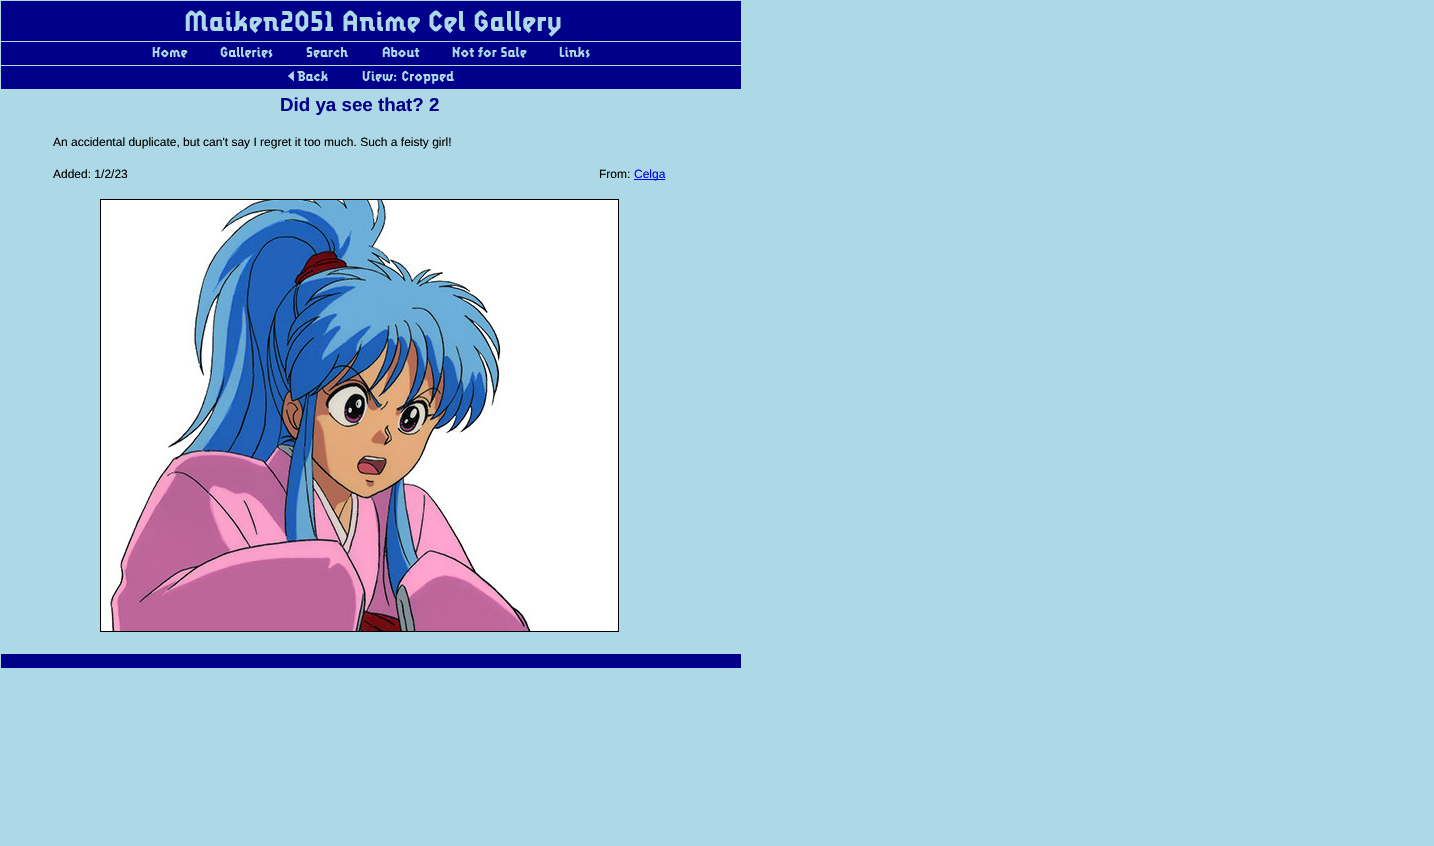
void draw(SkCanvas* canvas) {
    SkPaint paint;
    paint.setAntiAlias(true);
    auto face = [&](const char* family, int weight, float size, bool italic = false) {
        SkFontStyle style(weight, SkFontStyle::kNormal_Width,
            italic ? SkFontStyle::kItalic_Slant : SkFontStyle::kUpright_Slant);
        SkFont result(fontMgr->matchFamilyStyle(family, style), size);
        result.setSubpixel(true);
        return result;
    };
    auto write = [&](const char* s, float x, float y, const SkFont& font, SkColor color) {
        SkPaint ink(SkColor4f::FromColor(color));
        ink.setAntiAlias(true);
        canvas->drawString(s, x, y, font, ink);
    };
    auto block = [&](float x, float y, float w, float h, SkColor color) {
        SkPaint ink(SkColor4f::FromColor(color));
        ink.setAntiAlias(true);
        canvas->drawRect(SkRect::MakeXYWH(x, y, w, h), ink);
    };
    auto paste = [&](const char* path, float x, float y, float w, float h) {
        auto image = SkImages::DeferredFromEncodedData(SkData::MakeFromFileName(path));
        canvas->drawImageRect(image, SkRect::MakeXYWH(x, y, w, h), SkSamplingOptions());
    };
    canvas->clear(SkColorSetRGB(173, 216, 230));
    block(1, 1, 740, 88, SkColorSetRGB(0, 0, 139));
    block(1, 41, 740, 1, SkColorSetRGB(173, 216, 230));
    paste("pic1.png", 185, 10, 376, 27);
    block(1, 65, 740, 1, SkColorSetRGB(173, 216, 230));
    paste("pic2.png", 152, 47, 36, 11);
    paste("pic3.png", 220, 46, 53, 12);
    paste("pic4.png", 306, 47, 42, 11);
    paste("pic5.png", 382, 46, 38, 12);
    paste("pic6.png", 452, 47, 75, 11);
    paste("pic7.png", 559, 47, 31, 11);
    paste("pic8.png", 288, 71, 40, 11);
    paste("pic9.png", 362, 70, 92, 14);
    auto kFont1 = face("Liberation Sans", 700, 18.75f);
    write("Did ya see that? 2", 280, 111, kFont1, SkColorSetRGB(0, 0, 139));
    auto kFont2 = face("Liberation Sans", 400, 12);
    write("An accidental duplicate, but can't say I regret it too much. Such a feisty girl!", 53, 146, kFont2, SK_ColorBLACK);
    write("Added: 1/2/23", 53, 178, kFont2, SK_ColorBLACK);
    write("From:", 599, 178, kFont2, SK_ColorBLACK);
    block(634, 179, 31, 1, SkColorSetRGB(0, 0, 238));
    write("Celga", 634, 178, kFont2, SkColorSetRGB(0, 0, 238));
    block(100, 199, 519, 433, SK_ColorBLACK);
    paste("pic10.png", 101, 200, 517, 431);
    block(1, 654, 740, 14, SkColorSetRGB(0, 0, 139));
}
